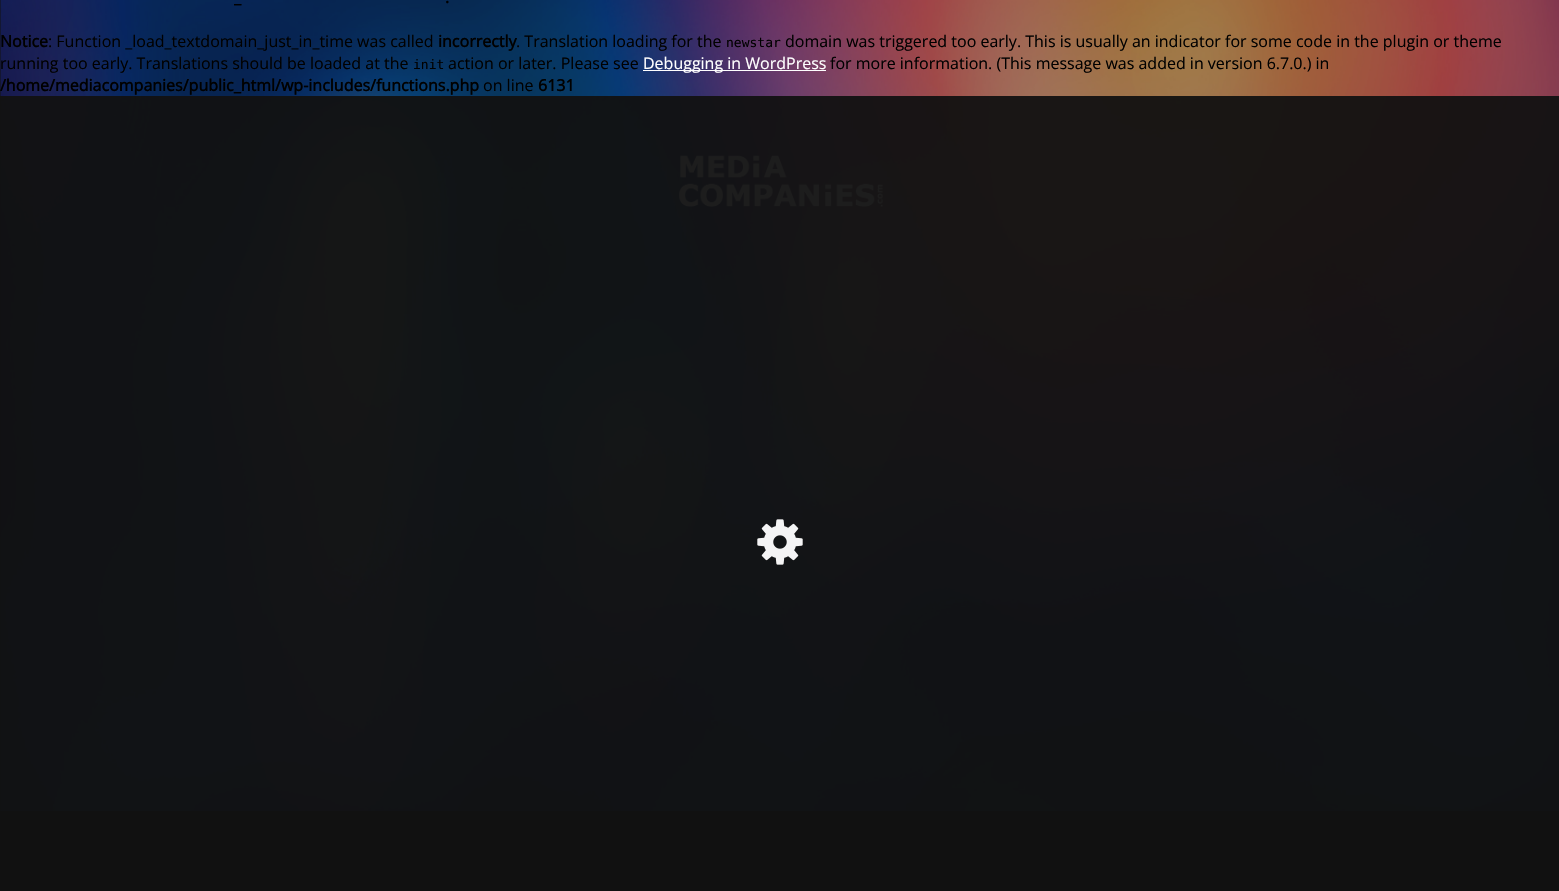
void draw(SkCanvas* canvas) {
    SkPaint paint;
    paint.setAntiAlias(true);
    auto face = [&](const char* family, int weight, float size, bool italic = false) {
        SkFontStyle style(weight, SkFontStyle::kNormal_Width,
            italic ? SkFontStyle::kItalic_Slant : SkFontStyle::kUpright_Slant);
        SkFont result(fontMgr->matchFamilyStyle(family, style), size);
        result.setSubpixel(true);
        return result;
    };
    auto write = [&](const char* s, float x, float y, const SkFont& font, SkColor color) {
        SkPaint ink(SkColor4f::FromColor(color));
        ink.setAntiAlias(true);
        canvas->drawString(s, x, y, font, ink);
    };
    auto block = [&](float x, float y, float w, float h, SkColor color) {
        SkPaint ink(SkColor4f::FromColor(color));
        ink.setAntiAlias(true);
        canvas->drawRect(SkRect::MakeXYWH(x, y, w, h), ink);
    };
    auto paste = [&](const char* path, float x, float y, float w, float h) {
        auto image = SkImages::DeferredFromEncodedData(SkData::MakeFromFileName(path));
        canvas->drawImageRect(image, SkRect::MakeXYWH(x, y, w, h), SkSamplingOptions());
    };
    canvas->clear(SkColorSetRGB(17, 17, 17));
    paste("pic1.png", 0, 0, 1559, 811);
    paste("pic3.png", 679, 155, 204, 52);
    block(0, 96, 1559, 715, SkColorSetARGB(242, 17, 17, 17));
    paste("pic2.png", 757, 519, 46, 46);
    auto kFont1 = face("Open Sans", 700, 16);
    write(".", 445, 3, kFont1, SK_ColorBLACK);
    write("_", 234, 3, kFont1, SK_ColorBLACK);
    write("Notice", 0, 47, kFont1, SK_ColorBLACK);
    auto kFont2 = face("Open Sans", 400, 16);
    write(": Function _load_textdomain_just_in_time was called", 48, 47, kFont2, SK_ColorBLACK);
    write("incorrectly", 438, 47, kFont1, SK_ColorBLACK);
    write(". Translation loading for the", 516, 47, kFont2, SK_ColorBLACK);
    auto kFont3 = face("DejaVu Sans Mono", 400, 13);
    write("newstar", 726, 47, kFont3, SK_ColorBLACK);
    write("domain was triggered too early. This is usually an indicator for some code in the plugin or theme", 785, 47, kFont2, SK_ColorBLACK);
    write("running too early. Translations should be loaded at the", 0, 69, kFont2, SK_ColorBLACK);
    write("init", 413, 69, kFont3, SK_ColorBLACK);
    write("action or later. Please see", 448, 69, kFont2, SK_ColorBLACK);
    block(643, 70, 183, 1, SK_ColorWHITE);
    write("Debugging in WordPress", 643, 69, kFont2, SK_ColorWHITE);
    write("for more information. (This message was added in version 6.7.0.) in", 830, 69, kFont2, SK_ColorBLACK);
    write("/home/mediacompanies/public_html/wp-includes/functions.php", 0, 91, kFont1, SK_ColorBLACK);
    write("on line", 483, 91, kFont2, SK_ColorBLACK);
    write("6131", 538, 91, kFont1, SK_ColorBLACK);
}
